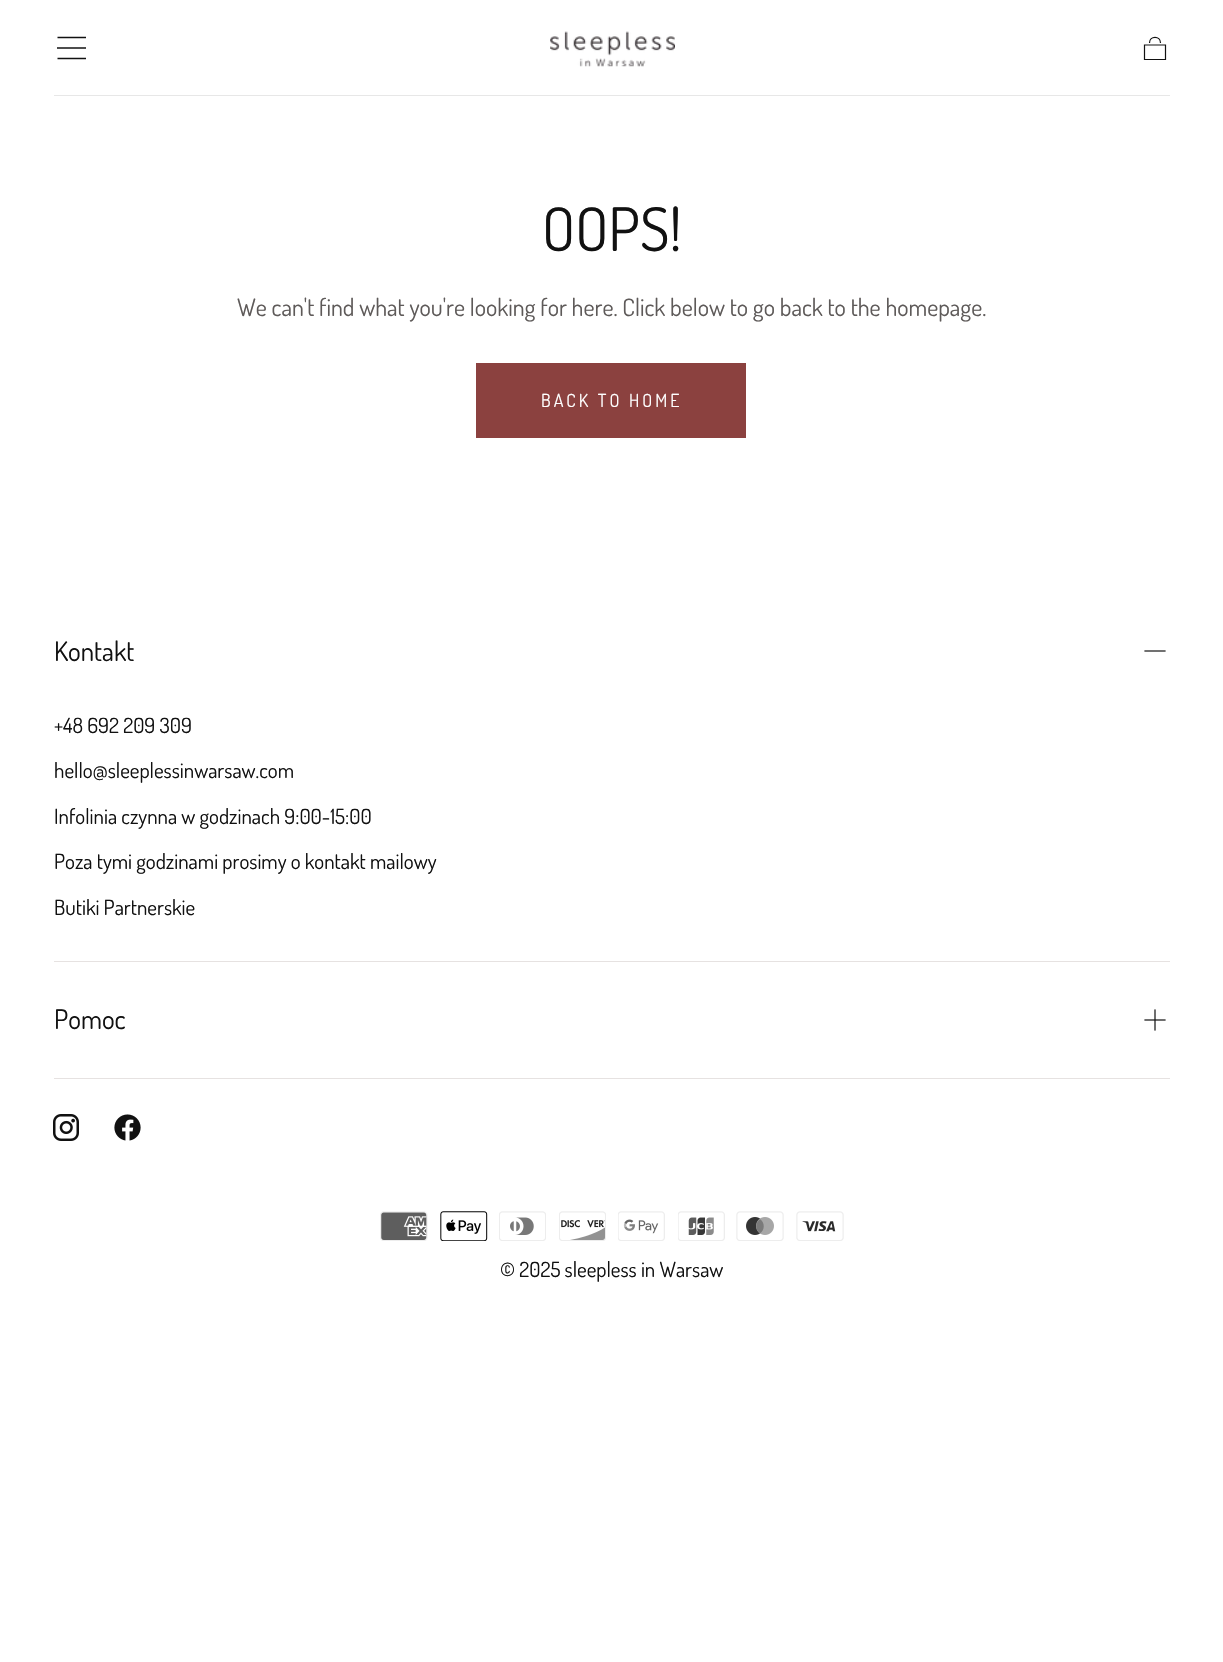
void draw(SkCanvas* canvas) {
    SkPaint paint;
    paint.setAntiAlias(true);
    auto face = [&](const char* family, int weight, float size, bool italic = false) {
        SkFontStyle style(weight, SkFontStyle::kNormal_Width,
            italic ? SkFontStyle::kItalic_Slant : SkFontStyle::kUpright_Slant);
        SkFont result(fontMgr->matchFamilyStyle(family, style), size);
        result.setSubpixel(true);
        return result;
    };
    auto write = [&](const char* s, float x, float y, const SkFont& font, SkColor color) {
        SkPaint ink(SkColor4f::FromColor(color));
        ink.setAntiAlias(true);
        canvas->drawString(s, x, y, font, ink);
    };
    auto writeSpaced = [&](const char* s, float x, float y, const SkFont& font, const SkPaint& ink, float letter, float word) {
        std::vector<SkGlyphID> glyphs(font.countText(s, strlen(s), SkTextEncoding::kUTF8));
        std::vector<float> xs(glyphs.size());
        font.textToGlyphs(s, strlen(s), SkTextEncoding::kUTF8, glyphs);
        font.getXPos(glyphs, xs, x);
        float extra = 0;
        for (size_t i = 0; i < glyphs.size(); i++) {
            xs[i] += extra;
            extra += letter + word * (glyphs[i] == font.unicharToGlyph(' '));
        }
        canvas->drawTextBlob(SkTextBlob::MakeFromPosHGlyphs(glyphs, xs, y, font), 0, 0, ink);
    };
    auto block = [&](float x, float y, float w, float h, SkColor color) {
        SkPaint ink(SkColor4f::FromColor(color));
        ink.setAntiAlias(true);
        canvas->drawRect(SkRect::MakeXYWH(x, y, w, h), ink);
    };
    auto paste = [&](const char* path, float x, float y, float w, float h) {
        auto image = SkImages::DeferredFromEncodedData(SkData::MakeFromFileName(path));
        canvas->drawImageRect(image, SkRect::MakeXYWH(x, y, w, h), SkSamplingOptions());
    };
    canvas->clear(SK_ColorWHITE);
    paste("pic1.png", 57, 36, 29, 24);
    paste("pic2.png", 550, 31, 125, 36);
    paint.setStyle(SkPaint::kStroke_Style);
    paint.setStrokeWidth(1.2f);
    paint.setColor(SkColorSetRGB(17, 17, 17));
    canvas->drawPath(SkPathBuilder().moveTo(1165.5f, 59.5f).lineTo(1144.5f, 59.5f).lineTo(1144.5f, 45).lineTo(1165.5f, 45).close().moveTo(1160.5f, 43).cubicTo(1160.5f, 35.5f, 1149.5f, 35.5f, 1149.5f, 43).detach(), paint);
    block(54, 95, 1116, 1, SkColorSetRGB(231, 231, 231));
    auto kFont1 = face("Dosis", 400, 60);
    write("OOPS!", 542, 251, kFont1, SkColorSetRGB(17, 17, 17));
    auto kFont2 = face("Dosis", 400, 24);
    write("We can't find what you're looking for here. Click below to go back to the homepage.", 237, 316, kFont2, SkColorSetRGB(94, 90, 89));
    block(476, 363, 270, 75, SkColorSetRGB(139, 65, 63));
    auto kFont3 = face("Dosis", 400, 18);
    paint.setStyle(SkPaint::kFill_Style);
    paint.setColor(SK_ColorWHITE);
    writeSpaced("BACK TO HOME", 541, 407, kFont3, paint, 3, 0);
    block(54, 961, 1116, 1, SkColorSetRGB(230, 226, 225));
    auto kFont4 = face("Dosis", 400, 27);
    write("Kontakt", 54, 661, kFont4, SkColorSetRGB(17, 17, 17));
    paint.setStyle(SkPaint::kStroke_Style);
    paint.setStrokeCap(SkPaint::kSquare_Cap);
    paint.setColor(SkColorSetRGB(17, 17, 17));
    canvas->drawPath(SkPathBuilder().moveTo(1145, 651).lineTo(1165, 651).detach(), paint);
    auto kFont5 = face("Dosis", 400, 21);
    write("+48 692 209 309", 54, 733, kFont5, SkColorSetRGB(17, 17, 17));
    write("hello@sleeplessinwarsaw.com", 54, 778, kFont5, SkColorSetRGB(17, 17, 17));
    write("Infolinia czynna w godzinach 9:00-15:00", 54, 824, kFont5, SkColorSetRGB(17, 17, 17));
    write("Poza tymi godzinami prosimy o kontakt mailowy", 54, 869, kFont5, SkColorSetRGB(17, 17, 17));
    write("Butiki Partnerskie", 54, 915, kFont5, SkColorSetRGB(17, 17, 17));
    block(54, 1078, 1116, 1, SkColorSetRGB(230, 226, 225));
    write("Pomoc", 54, 1029, kFont4, SkColorSetRGB(17, 17, 17));
    paste("pic3.png", 1144, 1009, 22, 22);
    paste("pic4.png", 53, 1114, 26, 27);
    paste("pic5.png", 114, 1114, 27, 27);
    paste("pic6.png", 380, 1211, 48, 30);
    paste("pic7.png", 440, 1211, 48, 30);
    paste("pic8.png", 499, 1211, 47, 30);
    paste("pic9.png", 559, 1211, 47, 30);
    paste("pic10.png", 618, 1211, 47, 30);
    paste("pic11.png", 678, 1211, 47, 30);
    paste("pic12.png", 736, 1211, 48, 30);
    paste("pic13.png", 796, 1211, 48, 30);
    write("© 2025 sleepless in Warsaw", 500, 1277, kFont5, SkColorSetRGB(17, 17, 17));
}
